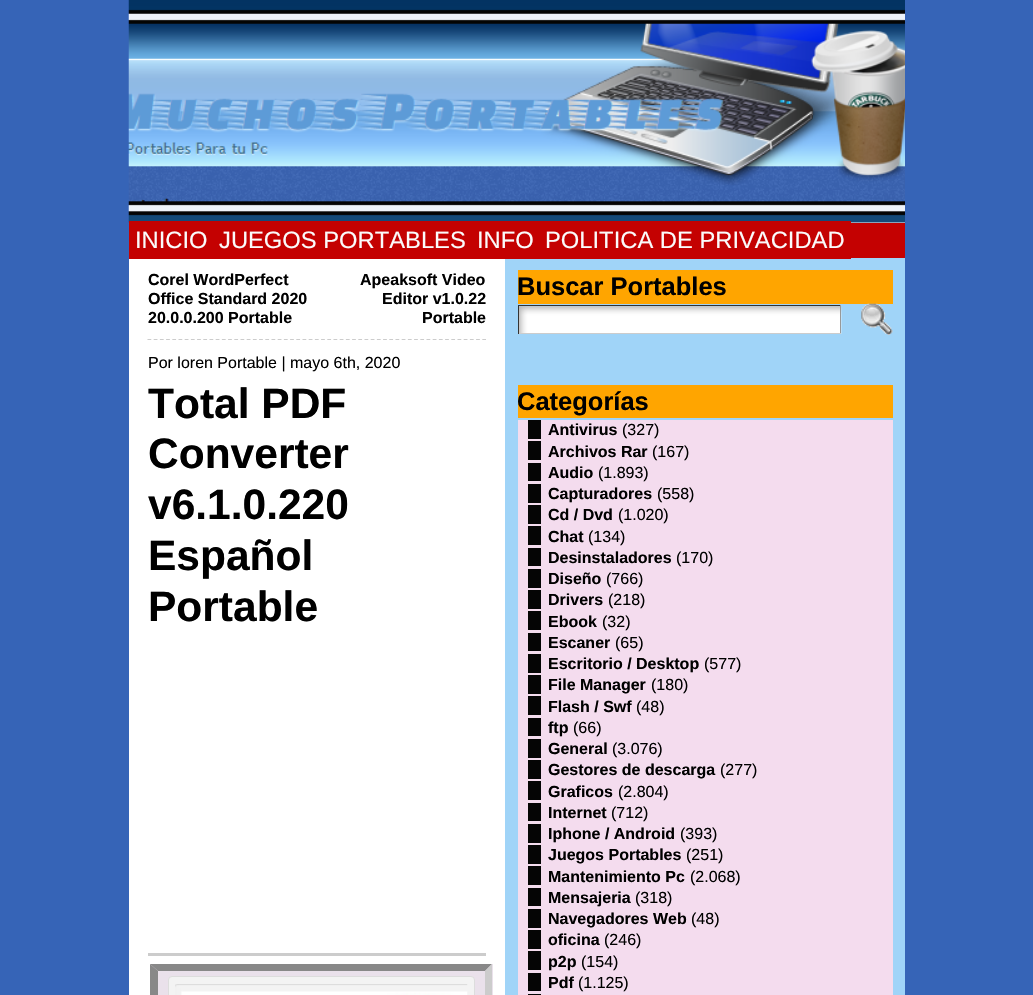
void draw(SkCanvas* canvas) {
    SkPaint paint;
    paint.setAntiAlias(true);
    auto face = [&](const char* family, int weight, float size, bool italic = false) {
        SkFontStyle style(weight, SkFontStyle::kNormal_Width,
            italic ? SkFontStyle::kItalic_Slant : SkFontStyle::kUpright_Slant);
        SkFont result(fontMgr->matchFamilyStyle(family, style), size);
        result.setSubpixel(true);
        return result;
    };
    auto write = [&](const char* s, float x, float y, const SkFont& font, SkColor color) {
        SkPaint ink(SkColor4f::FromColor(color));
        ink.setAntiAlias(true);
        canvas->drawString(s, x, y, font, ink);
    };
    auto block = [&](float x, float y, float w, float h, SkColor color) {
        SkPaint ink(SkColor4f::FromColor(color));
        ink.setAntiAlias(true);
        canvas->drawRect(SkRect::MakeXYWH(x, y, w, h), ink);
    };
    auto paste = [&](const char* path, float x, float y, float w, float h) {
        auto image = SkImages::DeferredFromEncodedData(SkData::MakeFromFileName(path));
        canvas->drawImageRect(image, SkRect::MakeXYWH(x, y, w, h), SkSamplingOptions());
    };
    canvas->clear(SkColorSetRGB(54, 100, 183));
    block(129, 222, 776, 773, SK_ColorWHITE);
    paste("pic1.png", 128, 0, 777, 223);
    block(851, 223, 54, 35, SkColorSetRGB(196, 1, 1));
    block(505, 258, 400, 737, SkColorSetRGB(160, 212, 248));
    block(129, 221, 722, 38, SkColorSetRGB(196, 1, 1));
    auto kFont1 = face("Liberation Sans", 400, 23.75f);
    write("INICIO", 135, 248, kFont1, SkColorSetRGB(251, 251, 251));
    write("JUEGOS PORTABLES", 219, 248, kFont1, SkColorSetRGB(251, 251, 251));
    write("INFO", 477, 248, kFont1, SkColorSetRGB(251, 251, 251));
    write("POLITICA DE PRIVACIDAD", 545, 248, kFont1, SkColorSetRGB(251, 251, 251));
    paint.setStyle(SkPaint::kStroke_Style);
    paint.setStrokeWidth(1.2f);
    paint.setColor(SkColorSetRGB(204, 204, 204));
    paint.setPathEffect(SkDashPathEffect::Make({{3.75f, 2.45f}}, 0));
    canvas->drawPath(SkPathBuilder().moveTo(147.5f, 339.5f).lineTo(486, 339.5f).detach(), paint);
    paint.setPathEffect(nullptr);
    auto kFont2 = face("Liberation Sans", 700, 16);
    write("Corel WordPerfect", 148, 285, kFont2, SK_ColorBLACK);
    write("Office Standard 2020", 148, 304, kFont2, SK_ColorBLACK);
    write("20.0.0.200 Portable", 148, 323, kFont2, SK_ColorBLACK);
    write("Apeaksoft Video", 360, 285, kFont2, SK_ColorBLACK);
    write("Editor v1.0.22", 382, 304, kFont2, SK_ColorBLACK);
    write("Portable", 422, 323, kFont2, SK_ColorBLACK);
    auto kFont3 = face("Liberation Sans", 400, 16);
    write("Por loren Portable | mayo 6th, 2020", 148, 368, kFont3, SK_ColorBLACK);
    auto kFont4 = face("Liberation Sans", 700, 42.5f);
    write("Total PDF", 148, 418, kFont4, SK_ColorBLACK);
    write("Converter", 148, 468, kFont4, SK_ColorBLACK);
    write("v6.1.0.220", 148, 519, kFont4, SK_ColorBLACK);
    write("Español", 148, 570, kFont4, SK_ColorBLACK);
    write("Portable", 148, 621, kFont4, SK_ColorBLACK);
    block(148, 953, 338, 3, SkColorSetRGB(204, 204, 204));
    block(150, 964, 343, 31, SkColorSetRGB(234, 225, 235));
    paint.setStyle(SkPaint::kFill_Style);
    paint.setColor(SkColorSetRGB(136, 136, 136));
    canvas->drawPath(SkPathBuilder().moveTo(150, 964).lineTo(492, 964).lineTo(485, 971).lineTo(158, 971).close().detach(), paint);
    paint.setColor(SkColorSetRGB(204, 204, 204));
    canvas->drawPath(SkPathBuilder().moveTo(492, 964).lineTo(492, 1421).lineTo(485, 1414).lineTo(485, 971).close().detach(), paint);
    paint.setColor(SkColorSetRGB(136, 136, 136));
    canvas->drawPath(SkPathBuilder().moveTo(150, 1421).lineTo(150, 964).lineTo(158, 971).lineTo(158, 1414).close().detach(), paint);
    paint.setColor(SkColorSetRGB(243, 243, 243));
    canvas->drawRoundRect(SkRect::MakeXYWH(168.5f, 976.5f, 306, 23), 3.5f, 3.5f, paint);
    paint.setStyle(SkPaint::kStroke_Style);
    paint.setStrokeWidth(1);
    paint.setColor(SkColorSetRGB(221, 221, 221));
    canvas->drawRoundRect(SkRect::MakeXYWH(168.5f, 976.5f, 306, 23), 3.5f, 3.5f, paint);
    paste("pic2.png", 175, 984, 293, 11);
    block(518, 270, 375, 34, SkColorSetRGB(255, 165, 0));
    auto kFont5 = face("Liberation Sans", 700, 25.5f);
    write("Buscar Portables", 517, 295, kFont5, SK_ColorBLACK);
    paste("pic3.png", 519, 306, 323, 28);
    block(518, 305, 323, 1, SkColorSetRGB(51, 51, 51));
    block(840, 305, 1, 29, SkColorSetRGB(153, 153, 153));
    block(518, 333, 323, 1, SkColorSetRGB(204, 204, 204));
    block(518, 305, 1, 29, SkColorSetRGB(51, 51, 51));
    paste("pic4.png", 861, 303, 32, 32);
    block(518, 385, 375, 33, SkColorSetRGB(255, 165, 0));
    write("Categorías", 517, 410, kFont5, SK_ColorBLACK);
    block(518, 420, 375, 575, SkColorSetRGB(244, 220, 238));
    write("Antivirus", 548, 435, kFont2, SK_ColorBLACK);
    block(528, 420, 13, 19, SkColorSetRGB(5, 5, 5));
    write("(327)", 622, 435, kFont3, SK_ColorBLACK);
    write("Archivos Rar", 548, 457, kFont2, SK_ColorBLACK);
    block(528, 441, 13, 19, SkColorSetRGB(5, 5, 5));
    write("(167)", 652, 457, kFont3, SK_ColorBLACK);
    write("Audio", 548, 478, kFont2, SK_ColorBLACK);
    block(528, 463, 13, 18, SkColorSetRGB(5, 5, 5));
    write("(1.893)", 598, 478, kFont3, SK_ColorBLACK);
    write("Capturadores", 548, 499, kFont2, SK_ColorBLACK);
    block(528, 484, 13, 19, SkColorSetRGB(5, 5, 5));
    write("(558)", 657, 499, kFont3, SK_ColorBLACK);
    write("Cd / Dvd", 548, 520, kFont2, SK_ColorBLACK);
    block(528, 505, 13, 19, SkColorSetRGB(5, 5, 5));
    write("(1.020)", 618, 520, kFont3, SK_ColorBLACK);
    write("Chat", 548, 542, kFont2, SK_ColorBLACK);
    block(528, 526, 13, 19, SkColorSetRGB(5, 5, 5));
    write("(134)", 588, 542, kFont3, SK_ColorBLACK);
    write("Desinstaladores", 548, 563, kFont2, SK_ColorBLACK);
    block(528, 548, 13, 18, SkColorSetRGB(5, 5, 5));
    write("(170)", 676, 563, kFont3, SK_ColorBLACK);
    write("Diseño", 548, 584, kFont2, SK_ColorBLACK);
    block(528, 569, 13, 19, SkColorSetRGB(5, 5, 5));
    write("(766)", 606, 584, kFont3, SK_ColorBLACK);
    write("Drivers", 548, 605, kFont2, SK_ColorBLACK);
    block(528, 590, 13, 19, SkColorSetRGB(5, 5, 5));
    write("(218)", 608, 605, kFont3, SK_ColorBLACK);
    write("Ebook", 548, 627, kFont2, SK_ColorBLACK);
    block(528, 611, 13, 19, SkColorSetRGB(5, 5, 5));
    write("(32)", 602, 627, kFont3, SK_ColorBLACK);
    write("Escaner", 548, 648, kFont2, SK_ColorBLACK);
    block(528, 633, 13, 18, SkColorSetRGB(5, 5, 5));
    write("(65)", 615, 648, kFont3, SK_ColorBLACK);
    write("Escritorio / Desktop", 548, 669, kFont2, SK_ColorBLACK);
    block(528, 654, 13, 19, SkColorSetRGB(5, 5, 5));
    write("(577)", 704, 669, kFont3, SK_ColorBLACK);
    write("File Manager", 548, 690, kFont2, SK_ColorBLACK);
    block(528, 675, 13, 19, SkColorSetRGB(5, 5, 5));
    write("(180)", 651, 690, kFont3, SK_ColorBLACK);
    write("Flash / Swf", 548, 712, kFont2, SK_ColorBLACK);
    block(528, 696, 13, 19, SkColorSetRGB(5, 5, 5));
    write("(48)", 636, 712, kFont3, SK_ColorBLACK);
    write("ftp", 548, 733, kFont2, SK_ColorBLACK);
    block(528, 718, 13, 18, SkColorSetRGB(5, 5, 5));
    write("(66)", 573, 733, kFont3, SK_ColorBLACK);
    write("General", 548, 754, kFont2, SK_ColorBLACK);
    block(528, 739, 13, 19, SkColorSetRGB(5, 5, 5));
    write("(3.076)", 612, 754, kFont3, SK_ColorBLACK);
    write("Gestores de descarga", 548, 775, kFont2, SK_ColorBLACK);
    block(528, 760, 13, 19, SkColorSetRGB(5, 5, 5));
    write("(277)", 720, 775, kFont3, SK_ColorBLACK);
    write("Graficos", 548, 797, kFont2, SK_ColorBLACK);
    block(528, 781, 13, 19, SkColorSetRGB(5, 5, 5));
    write("(2.804)", 618, 797, kFont3, SK_ColorBLACK);
    write("Internet", 548, 818, kFont2, SK_ColorBLACK);
    block(528, 803, 13, 18, SkColorSetRGB(5, 5, 5));
    write("(712)", 611, 818, kFont3, SK_ColorBLACK);
    write("Iphone / Android", 548, 839, kFont2, SK_ColorBLACK);
    block(528, 824, 13, 19, SkColorSetRGB(5, 5, 5));
    write("(393)", 680, 839, kFont3, SK_ColorBLACK);
    write("Juegos Portables", 548, 860, kFont2, SK_ColorBLACK);
    block(528, 845, 13, 19, SkColorSetRGB(5, 5, 5));
    write("(251)", 686, 860, kFont3, SK_ColorBLACK);
    write("Mantenimiento Pc", 548, 882, kFont2, SK_ColorBLACK);
    block(528, 866, 13, 19, SkColorSetRGB(5, 5, 5));
    write("(2.068)", 690, 882, kFont3, SK_ColorBLACK);
    write("Mensajeria", 548, 903, kFont2, SK_ColorBLACK);
    block(528, 888, 13, 18, SkColorSetRGB(5, 5, 5));
    write("(318)", 635, 903, kFont3, SK_ColorBLACK);
    write("Navegadores Web", 548, 924, kFont2, SK_ColorBLACK);
    block(528, 909, 13, 19, SkColorSetRGB(5, 5, 5));
    write("(48)", 691, 924, kFont3, SK_ColorBLACK);
    write("oficina", 548, 945, kFont2, SK_ColorBLACK);
    block(528, 930, 13, 19, SkColorSetRGB(5, 5, 5));
    write("(246)", 604, 945, kFont3, SK_ColorBLACK);
    write("p2p", 548, 967, kFont2, SK_ColorBLACK);
    block(528, 951, 13, 19, SkColorSetRGB(5, 5, 5));
    write("(154)", 581, 967, kFont3, SK_ColorBLACK);
    write("Pdf", 548, 988, kFont2, SK_ColorBLACK);
    block(528, 973, 13, 18, SkColorSetRGB(5, 5, 5));
    write("(1.125)", 578, 988, kFont3, SK_ColorBLACK);
    block(528, 994, 13, 1, SkColorSetRGB(5, 5, 5));
}
